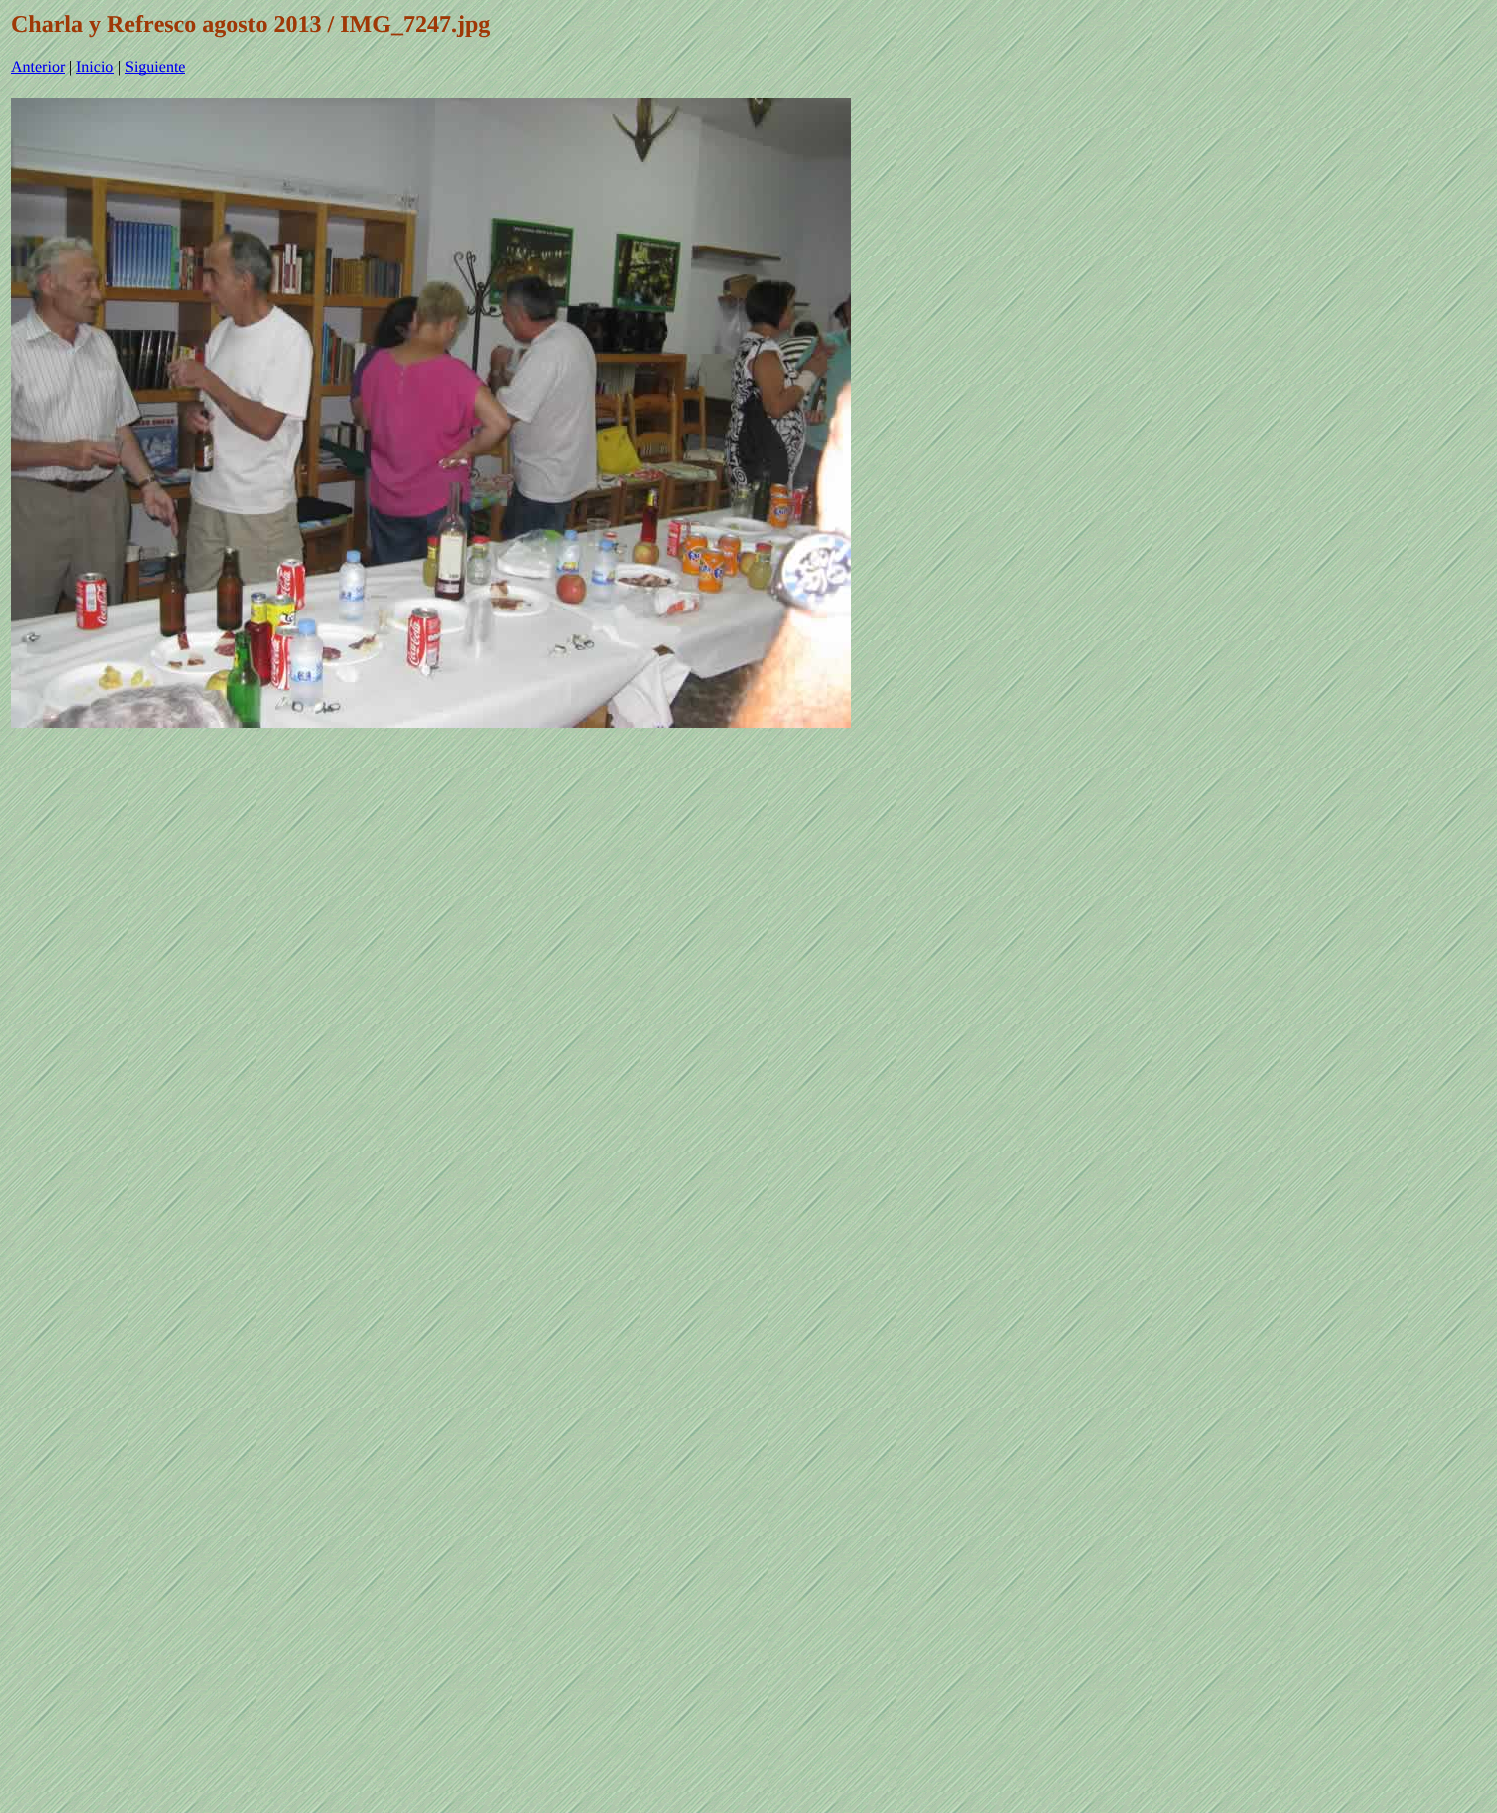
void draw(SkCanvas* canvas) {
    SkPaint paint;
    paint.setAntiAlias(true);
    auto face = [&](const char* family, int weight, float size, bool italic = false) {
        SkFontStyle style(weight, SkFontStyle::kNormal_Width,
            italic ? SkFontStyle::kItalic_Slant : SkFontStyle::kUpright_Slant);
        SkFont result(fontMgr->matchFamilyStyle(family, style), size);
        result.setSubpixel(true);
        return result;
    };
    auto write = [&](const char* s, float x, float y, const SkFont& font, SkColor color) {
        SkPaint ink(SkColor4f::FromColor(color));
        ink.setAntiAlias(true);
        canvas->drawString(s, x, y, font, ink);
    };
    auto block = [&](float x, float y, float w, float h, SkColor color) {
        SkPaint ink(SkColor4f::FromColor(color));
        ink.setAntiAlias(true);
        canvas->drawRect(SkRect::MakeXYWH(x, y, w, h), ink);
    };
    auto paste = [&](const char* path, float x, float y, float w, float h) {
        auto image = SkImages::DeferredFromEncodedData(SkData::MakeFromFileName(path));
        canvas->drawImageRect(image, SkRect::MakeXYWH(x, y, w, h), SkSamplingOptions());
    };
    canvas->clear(SK_ColorWHITE);
    paste("pic1.png", 0, 0, 1497, 1813);
    auto kFont1 = face("Liberation Serif", 700, 24);
    write("Charla y Refresco agosto 2013 / IMG_7247.jpg", 11, 32, kFont1, SkColorSetRGB(159, 56, 6));
    auto kFont2 = face("Liberation Serif", 400, 16);
    write("Anterior", 11, 72, kFont2, SkColorSetRGB(0, 0, 238));
    block(11, 73, 54, 1, SkColorSetRGB(0, 0, 238));
    write("|", 69, 72, kFont2, SK_ColorBLACK);
    write("Inicio", 76, 72, kFont2, SkColorSetRGB(0, 0, 238));
    block(76, 73, 38, 1, SkColorSetRGB(0, 0, 238));
    write("|", 118, 72, kFont2, SK_ColorBLACK);
    block(125, 73, 60, 1, SkColorSetRGB(0, 0, 238));
    write("Siguiente", 125, 72, kFont2, SkColorSetRGB(0, 0, 238));
    paste("pic2.png", 11, 98, 840, 630);
}
